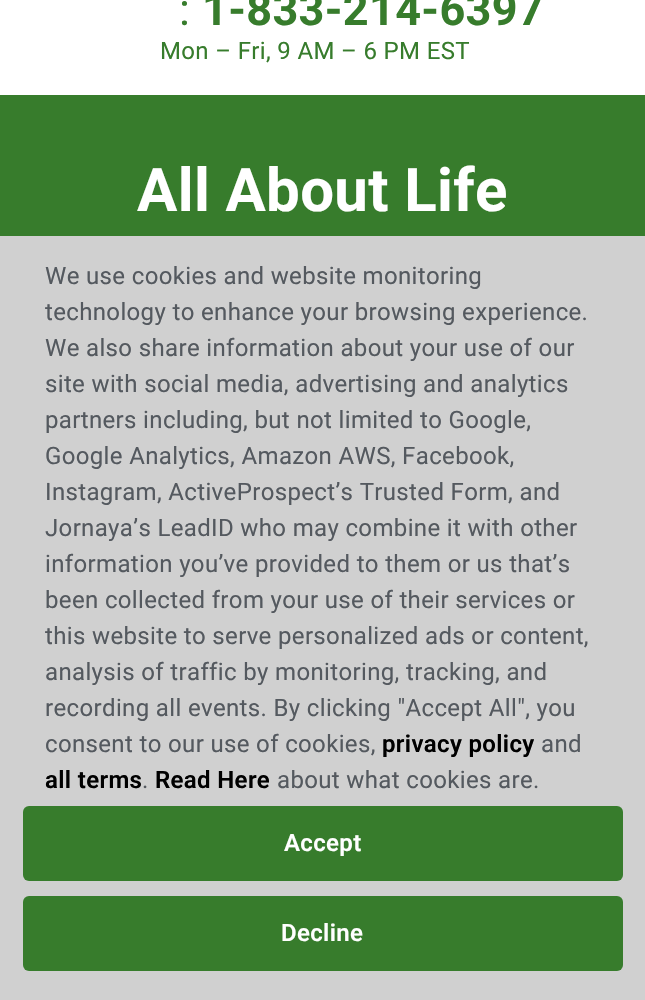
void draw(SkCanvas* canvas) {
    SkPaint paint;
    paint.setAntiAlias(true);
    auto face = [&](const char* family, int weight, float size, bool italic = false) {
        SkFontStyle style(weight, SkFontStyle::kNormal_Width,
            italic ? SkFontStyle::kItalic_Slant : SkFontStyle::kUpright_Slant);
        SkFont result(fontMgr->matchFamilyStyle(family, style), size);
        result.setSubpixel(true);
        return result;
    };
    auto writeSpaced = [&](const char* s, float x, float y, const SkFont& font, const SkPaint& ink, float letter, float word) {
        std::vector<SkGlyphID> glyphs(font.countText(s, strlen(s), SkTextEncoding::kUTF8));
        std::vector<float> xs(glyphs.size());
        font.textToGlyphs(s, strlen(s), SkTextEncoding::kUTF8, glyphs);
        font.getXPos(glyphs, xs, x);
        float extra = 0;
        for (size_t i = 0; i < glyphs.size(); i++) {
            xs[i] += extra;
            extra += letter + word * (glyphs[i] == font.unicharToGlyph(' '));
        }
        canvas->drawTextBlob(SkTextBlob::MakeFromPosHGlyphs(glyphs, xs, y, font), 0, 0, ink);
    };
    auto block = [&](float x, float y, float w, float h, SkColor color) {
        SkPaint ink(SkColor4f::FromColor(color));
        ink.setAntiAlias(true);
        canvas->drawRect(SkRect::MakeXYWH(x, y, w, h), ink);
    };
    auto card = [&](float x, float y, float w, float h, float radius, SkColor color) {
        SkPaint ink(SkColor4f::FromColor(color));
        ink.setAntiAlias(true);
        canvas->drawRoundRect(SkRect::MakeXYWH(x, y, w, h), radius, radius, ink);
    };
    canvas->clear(SK_ColorWHITE);
    canvas->save();
    canvas->clipPath(SkPathBuilder(SkPathFillType::kEvenOdd).moveTo(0, 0).lineTo(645, 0).lineTo(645, 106).lineTo(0, 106).close().moveTo(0, -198).lineTo(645, -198).lineTo(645, 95).lineTo(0, 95).close().detach(), true);
    paint.setColor(SkColorSetRGB(242, 243, 245));
    paint.setMaskFilter(SkMaskFilter::MakeBlur(kNormal_SkBlurStyle, 2));
    canvas->drawRect(SkRect::MakeXYWH(5, -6, 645, 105), paint);
    paint.setMaskFilter(nullptr);
    canvas->restore();
    auto kFont1 = face("Roboto", 400, 45);
    paint.setColor(SkColorSetRGB(55, 124, 44));
    writeSpaced(":", 179, 25, kFont1, paint, 0.35f, 0);
    auto kFont2 = face("Roboto", 700, 45);
    writeSpaced("1-833-214-6397", 202, 25, kFont2, paint, 0.35f, 0);
    auto kFont3 = face("Roboto", 400, 24);
    writeSpaced("Mon – Fri, 9 AM – 6 PM EST", 160, 59, kFont3, paint, 0.35f, 0);
    block(0, 95, 645, 141, SkColorSetRGB(55, 124, 44));
    auto kFont4 = face("Roboto", 700, 60);
    paint.setColor(SK_ColorWHITE);
    writeSpaced("All About Life", 137, 211, kFont4, paint, 0.35f, 0);
    block(0, 236, 645, 764, SkColorSetRGB(208, 208, 208));
    paint.setColor(SkColorSetRGB(84, 89, 95));
    writeSpaced("We use cookies and website monitoring", 45, 284, kFont3, paint, 0.35f, 0);
    writeSpaced("technology to enhance your browsing experience.", 45, 320, kFont3, paint, 0.35f, 0);
    writeSpaced("We also share information about your use of our", 45, 356, kFont3, paint, 0.35f, 0);
    writeSpaced("site with social media, advertising and analytics", 45, 392, kFont3, paint, 0.35f, 0);
    writeSpaced("partners including, but not limited to Google,", 45, 428, kFont3, paint, 0.35f, 0);
    writeSpaced("Google Analytics, Amazon AWS, Facebook,", 45, 464, kFont3, paint, 0.35f, 0);
    writeSpaced("Instagram, ActiveProspect’s Trusted Form, and", 45, 500, kFont3, paint, 0.35f, 0);
    writeSpaced("Jornaya’s LeadID who may combine it with other", 45, 536, kFont3, paint, 0.35f, 0);
    writeSpaced("information you’ve provided to them or us that’s", 45, 572, kFont3, paint, 0.35f, 0);
    writeSpaced("been collected from your use of their services or", 45, 608, kFont3, paint, 0.35f, 0);
    writeSpaced("this website to serve personalized ads or content,", 45, 644, kFont3, paint, 0.35f, 0);
    writeSpaced("analysis of traffic by monitoring, tracking, and", 45, 680, kFont3, paint, 0.35f, 0);
    writeSpaced("recording all events. By clicking \"Accept All\", you", 45, 716, kFont3, paint, 0.35f, 0);
    writeSpaced("consent to our use of cookies,", 45, 752, kFont3, paint, 0.35f, 0);
    auto kFont5 = face("Roboto", 600, 24);
    paint.setColor(SK_ColorBLACK);
    writeSpaced("privacy policy", 382, 752, kFont5, paint, 0.35f, 0);
    paint.setColor(SkColorSetRGB(84, 89, 95));
    writeSpaced("and", 541, 752, kFont3, paint, 0.35f, 0);
    paint.setColor(SK_ColorBLACK);
    writeSpaced("all terms", 45, 788, kFont5, paint, 0.35f, 0);
    paint.setColor(SkColorSetRGB(84, 89, 95));
    writeSpaced(".", 142, 788, kFont3, paint, 0.35f, 0);
    paint.setColor(SK_ColorBLACK);
    writeSpaced("Read Here", 155, 788, kFont5, paint, 0.35f, 0);
    paint.setColor(SkColorSetRGB(84, 89, 95));
    writeSpaced("about what cookies are.", 277, 788, kFont3, paint, 0.35f, 0);
    card(23, 806, 600, 75, 6, SkColorSetRGB(55, 124, 44));
    paint.setColor(SK_ColorWHITE);
    writeSpaced("Accept", 284, 851, kFont5, paint, 0.35f, 0);
    card(23, 896, 600, 75, 6, SkColorSetRGB(55, 124, 44));
    writeSpaced("Decline", 281, 941, kFont5, paint, 0.35f, 0);
}
